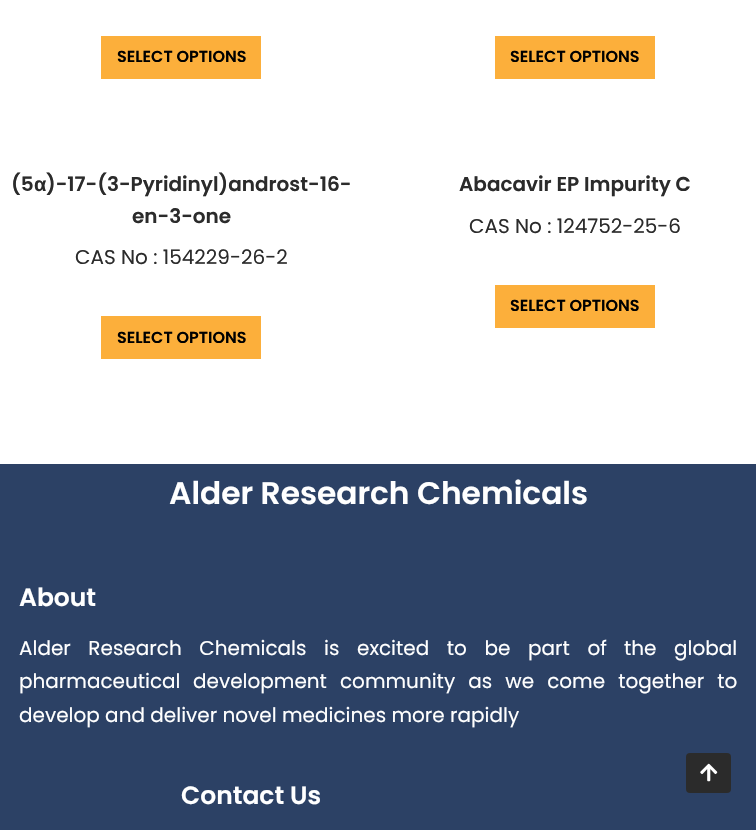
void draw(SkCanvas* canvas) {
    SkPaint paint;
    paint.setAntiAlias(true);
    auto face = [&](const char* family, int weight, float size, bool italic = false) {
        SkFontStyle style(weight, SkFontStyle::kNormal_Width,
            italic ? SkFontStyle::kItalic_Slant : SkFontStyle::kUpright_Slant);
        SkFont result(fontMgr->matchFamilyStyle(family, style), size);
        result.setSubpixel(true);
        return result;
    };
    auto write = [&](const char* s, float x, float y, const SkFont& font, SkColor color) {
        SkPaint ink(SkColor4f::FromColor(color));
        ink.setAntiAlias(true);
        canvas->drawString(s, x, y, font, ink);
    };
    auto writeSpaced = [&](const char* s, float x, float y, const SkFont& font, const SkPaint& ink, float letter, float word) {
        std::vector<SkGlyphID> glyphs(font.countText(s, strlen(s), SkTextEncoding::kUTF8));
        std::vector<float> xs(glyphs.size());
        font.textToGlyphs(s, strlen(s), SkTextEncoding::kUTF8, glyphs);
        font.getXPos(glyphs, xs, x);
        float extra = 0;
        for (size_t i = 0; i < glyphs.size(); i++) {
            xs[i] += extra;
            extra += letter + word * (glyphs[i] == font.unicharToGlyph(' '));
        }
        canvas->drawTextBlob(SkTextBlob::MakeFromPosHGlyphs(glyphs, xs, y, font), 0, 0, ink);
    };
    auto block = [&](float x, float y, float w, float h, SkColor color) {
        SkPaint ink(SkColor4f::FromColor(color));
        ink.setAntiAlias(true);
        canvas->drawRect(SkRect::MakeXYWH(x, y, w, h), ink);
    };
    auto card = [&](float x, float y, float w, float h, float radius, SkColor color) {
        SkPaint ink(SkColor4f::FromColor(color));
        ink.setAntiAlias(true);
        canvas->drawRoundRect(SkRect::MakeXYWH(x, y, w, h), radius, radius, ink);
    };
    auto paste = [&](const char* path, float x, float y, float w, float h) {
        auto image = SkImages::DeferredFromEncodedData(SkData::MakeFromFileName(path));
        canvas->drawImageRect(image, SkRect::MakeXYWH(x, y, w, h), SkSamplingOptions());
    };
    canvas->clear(SK_ColorWHITE);
    block(101, 36, 160, 43, SkColorSetRGB(252, 175, 59));
    auto kFont1 = face("Poppins", 600, 16);
    write("SELECT OPTIONS", 117, 62, kFont1, SK_ColorBLACK);
    block(495, 36, 160, 43, SkColorSetRGB(252, 175, 59));
    write("SELECT OPTIONS", 510, 62, kFont1, SK_ColorBLACK);
    auto kFont2 = face("Poppins", 600, 20);
    write("(5", 11, 191, kFont2, SkColorSetRGB(43, 43, 43));
    auto kFont3 = face("Liberation Sans", 700, 20);
    write("α", 34, 191, kFont3, SkColorSetRGB(43, 43, 43));
    write(")-17-(3-Pyridinyl)androst-16-", 46, 191, kFont2, SkColorSetRGB(43, 43, 43));
    write("en-3-one", 132, 223, kFont2, SkColorSetRGB(43, 43, 43));
    auto kFont4 = face("Poppins", 400, 20);
    write("CAS No : 154229-26-2", 75, 264, kFont4, SkColorSetRGB(43, 43, 43));
    block(101, 316, 160, 43, SkColorSetRGB(252, 175, 59));
    write("SELECT OPTIONS", 117, 343, kFont1, SK_ColorBLACK);
    write("Abacavir EP Impurity C", 459, 191, kFont2, SkColorSetRGB(43, 43, 43));
    write("CAS No : 124752-25-6", 469, 233, kFont4, SkColorSetRGB(43, 43, 43));
    block(495, 285, 160, 43, SkColorSetRGB(252, 175, 59));
    write("SELECT OPTIONS", 510, 311, kFont1, SK_ColorBLACK);
    block(0, 464, 756, 366, SkColorSetRGB(44, 65, 101));
    auto kFont5 = face("Poppins", 600, 31.25f);
    write("Alder Research Chemicals", 169, 504, kFont5, SK_ColorWHITE);
    auto kFont6 = face("Poppins", 600, 25);
    write("About", 19, 606, kFont6, SK_ColorWHITE);
    paint.setColor(SK_ColorWHITE);
    writeSpaced("Alder Research Chemicals is excited to be part of", 19, 655, kFont4, paint, 0, 12.25f);
    writeSpaced("the global", 624, 655, kFont4, paint, 0, 12.25f);
    write("pharmaceutical", 19, 688, kFont4, SK_ColorWHITE);
    writeSpaced("development community as we come together to", 193, 688, kFont4, paint, 0, 7.75f);
    write("develop and deliver novel medicines more rapidly", 19, 722, kFont4, SK_ColorWHITE);
    write("Contact Us", 181, 804, kFont6, SK_ColorWHITE);
    card(686, 753, 45, 40, 4, SkColorSetRGB(43, 43, 43));
    paste("pic1.png", 700, 763, 18, 19);
}
